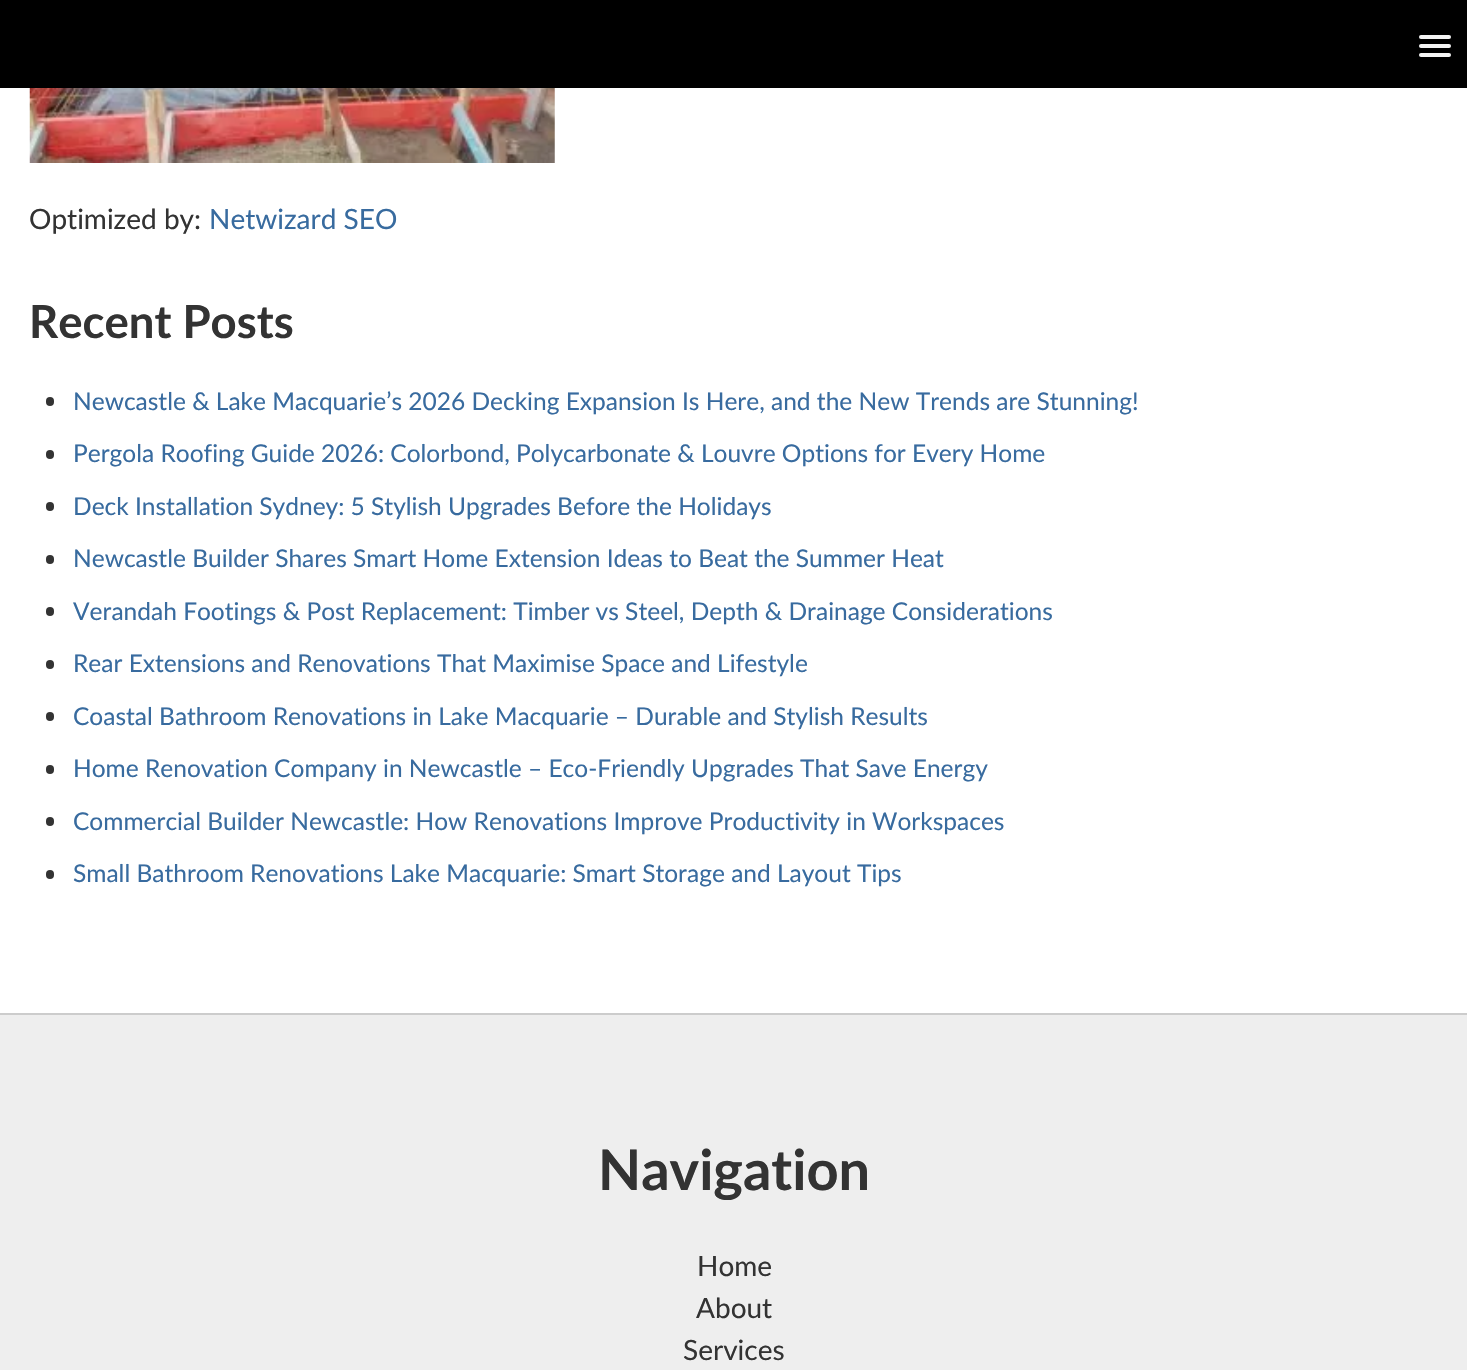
void draw(SkCanvas* canvas) {
    SkPaint paint;
    paint.setAntiAlias(true);
    auto face = [&](const char* family, int weight, float size, bool italic = false) {
        SkFontStyle style(weight, SkFontStyle::kNormal_Width,
            italic ? SkFontStyle::kItalic_Slant : SkFontStyle::kUpright_Slant);
        SkFont result(fontMgr->matchFamilyStyle(family, style), size);
        result.setSubpixel(true);
        return result;
    };
    auto write = [&](const char* s, float x, float y, const SkFont& font, SkColor color) {
        SkPaint ink(SkColor4f::FromColor(color));
        ink.setAntiAlias(true);
        canvas->drawString(s, x, y, font, ink);
    };
    auto block = [&](float x, float y, float w, float h, SkColor color) {
        SkPaint ink(SkColor4f::FromColor(color));
        ink.setAntiAlias(true);
        canvas->drawRect(SkRect::MakeXYWH(x, y, w, h), ink);
    };
    auto card = [&](float x, float y, float w, float h, float radius, SkColor color) {
        SkPaint ink(SkColor4f::FromColor(color));
        ink.setAntiAlias(true);
        canvas->drawRoundRect(SkRect::MakeXYWH(x, y, w, h), radius, radius, ink);
    };
    auto paste = [&](const char* path, float x, float y, float w, float h) {
        auto image = SkImages::DeferredFromEncodedData(SkData::MakeFromFileName(path));
        canvas->drawImageRect(image, SkRect::MakeXYWH(x, y, w, h), SkSamplingOptions());
    };
    canvas->clear(SK_ColorWHITE);
    block(0, 0, 1467, 88, SK_ColorBLACK);
    card(1419, 35, 32, 4, 2, SkColorSetRGB(245, 245, 245));
    card(1419, 44, 32, 4, 2, SkColorSetRGB(245, 245, 245));
    card(1419, 53, 32, 4, 2, SkColorSetRGB(245, 245, 245));
    paste("pic1.png", 29, 88, 526, 75);
    auto kFont1 = face("Lato", 400, 28);
    write("Optimized by:", 29, 229, kFont1, SkColorSetRGB(51, 51, 51));
    write("Netwizard SEO", 209, 229, kFont1, SkColorSetRGB(56, 107, 159));
    auto kFont2 = face("Lato", 700, 45.5f);
    write("Recent Posts", 29, 338, kFont2, SkColorSetRGB(51, 51, 51));
    card(46, 397, 8, 9, 4, SkColorSetRGB(51, 51, 51));
    auto kFont3 = face("Lato", 400, 24.5f);
    write("Newcastle & Lake Macquarie’s 2026 Decking Expansion Is Here, and the New Trends are Stunning!", 73, 410, kFont3, SkColorSetRGB(56, 107, 159));
    card(46, 450, 8, 9, 4, SkColorSetRGB(51, 51, 51));
    write("Pergola Roofing Guide 2026: Colorbond, Polycarbonate & Louvre Options for Every Home", 73, 462, kFont3, SkColorSetRGB(56, 107, 159));
    card(46, 502, 8, 9, 4, SkColorSetRGB(51, 51, 51));
    write("Deck Installation Sydney: 5 Stylish Upgrades Before the Holidays", 73, 515, kFont3, SkColorSetRGB(56, 107, 159));
    card(46, 555, 8, 9, 4, SkColorSetRGB(51, 51, 51));
    write("Newcastle Builder Shares Smart Home Extension Ideas to Beat the Summer Heat", 73, 567, kFont3, SkColorSetRGB(56, 107, 159));
    card(46, 607, 8, 9, 4, SkColorSetRGB(51, 51, 51));
    write("Verandah Footings & Post Replacement: Timber vs Steel, Depth & Drainage Considerations", 73, 620, kFont3, SkColorSetRGB(56, 107, 159));
    card(46, 660, 8, 9, 4, SkColorSetRGB(51, 51, 51));
    write("Rear Extensions and Renovations That Maximise Space and Lifestyle", 73, 672, kFont3, SkColorSetRGB(56, 107, 159));
    card(46, 712, 8, 9, 4, SkColorSetRGB(51, 51, 51));
    write("Coastal Bathroom Renovations in Lake Macquarie – Durable and Stylish Results", 73, 725, kFont3, SkColorSetRGB(56, 107, 159));
    card(46, 765, 8, 9, 4, SkColorSetRGB(51, 51, 51));
    write("Home Renovation Company in Newcastle – Eco-Friendly Upgrades That Save Energy", 73, 777, kFont3, SkColorSetRGB(56, 107, 159));
    card(46, 817, 8, 9, 4, SkColorSetRGB(51, 51, 51));
    write("Commercial Builder Newcastle: How Renovations Improve Productivity in Workspaces", 73, 830, kFont3, SkColorSetRGB(56, 107, 159));
    card(46, 870, 8, 9, 4, SkColorSetRGB(51, 51, 51));
    write("Small Bathroom Renovations Lake Macquarie: Smart Storage and Layout Tips", 73, 882, kFont3, SkColorSetRGB(56, 107, 159));
    block(0, 1015, 1467, 355, SkColorSetRGB(238, 238, 238));
    block(0, 1013, 1467, 2, SkColorSetRGB(204, 204, 204));
    auto kFont4 = face("Lato", 700, 56);
    write("Navigation", 598, 1190, kFont4, SkColorSetRGB(51, 51, 51));
    write("Home", 697, 1276, kFont1, SkColorSetRGB(51, 51, 51));
    write("About", 696, 1318, kFont1, SkColorSetRGB(51, 51, 51));
    write("Services", 683, 1360, kFont1, SkColorSetRGB(51, 51, 51));
}
